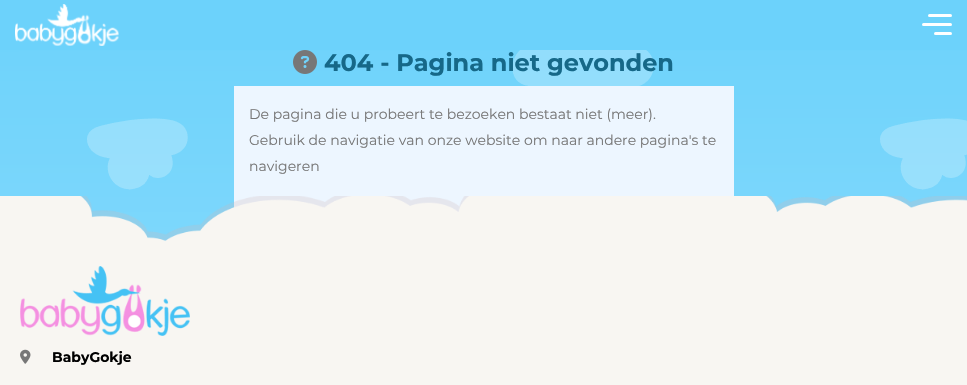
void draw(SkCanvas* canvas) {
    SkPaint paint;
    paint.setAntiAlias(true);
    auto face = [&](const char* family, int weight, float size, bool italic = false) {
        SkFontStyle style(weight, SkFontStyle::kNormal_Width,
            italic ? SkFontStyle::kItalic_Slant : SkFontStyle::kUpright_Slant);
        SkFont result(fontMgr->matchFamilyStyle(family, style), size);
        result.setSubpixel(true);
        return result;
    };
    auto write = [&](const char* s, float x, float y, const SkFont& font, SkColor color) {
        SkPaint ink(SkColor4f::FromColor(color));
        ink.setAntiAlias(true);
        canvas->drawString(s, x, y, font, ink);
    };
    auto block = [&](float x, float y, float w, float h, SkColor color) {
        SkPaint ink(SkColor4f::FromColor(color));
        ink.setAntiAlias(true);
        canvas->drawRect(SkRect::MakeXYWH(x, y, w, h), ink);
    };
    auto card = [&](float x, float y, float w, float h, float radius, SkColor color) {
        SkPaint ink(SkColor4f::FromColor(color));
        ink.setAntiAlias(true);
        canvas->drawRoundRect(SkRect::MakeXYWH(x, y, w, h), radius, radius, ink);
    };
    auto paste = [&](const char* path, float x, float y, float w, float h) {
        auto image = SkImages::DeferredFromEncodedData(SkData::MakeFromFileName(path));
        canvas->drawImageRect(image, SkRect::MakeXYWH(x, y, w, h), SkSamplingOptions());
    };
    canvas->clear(SK_ColorWHITE);
    {
        const SkColor colors[] = {SkColorSetRGB(108, 210, 251), SkColorSetRGB(179, 232, 254), SkColorSetRGB(253, 255, 255)};
        const float stops[] = {0, 0.85f, 1};
        const SkPoint ends[] = {{483, 0}, {484, 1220}};
        paint.setShader(SkGradientShader::MakeLinear(ends, colors, stops, 3, SkTileMode::kClamp));
        paint.setAlpha(255);
    }
    canvas->drawRect(SkRect::MakeXYWH(0, 50, 967, 192), paint);
    paste("pic1.png", 87, 50, 880, 140);
    block(0, 0, 967, 50, SkColorSetRGB(108, 210, 251));
    paste("pic2.png", 15, 4, 104, 42);
    card(928, 14, 24, 3, 1.5f, SK_ColorWHITE);
    card(922, 23, 30, 3, 1.5f, SK_ColorWHITE);
    card(934, 32, 18, 3, 1.5f, SK_ColorWHITE);
    paste("pic3.png", 293, 50, 24, 24);
    auto kFont1 = face("Montserrat", 700, 24);
    write("404 - Pagina niet gevonden", 324, 71, kFont1, SkColorSetRGB(22, 104, 136));
    block(234, 86, 500, 127, SkColorSetRGB(237, 246, 255));
    auto kFont2 = face("Montserrat", 400, 14);
    write("De pagina die u probeert te bezoeken bestaat niet (meer).", 249, 119, kFont2, SkColorSetRGB(119, 119, 119));
    write("Gebruik de navigatie van onze website om naar andere pagina's te", 249, 145, kFont2, SkColorSetRGB(119, 119, 119));
    write("navigeren", 249, 171, kFont2, SkColorSetRGB(119, 119, 119));
    block(0, 246, 967, 139, SkColorSetRGB(248, 246, 242));
    paste("pic4.png", 0, 196, 967, 50);
    paste("pic5.png", 20, 266, 170, 70);
    paste("pic6.png", 20, 349, 11, 15);
    auto kFont3 = face("Montserrat", 700, 14);
    write("BabyGokje", 52, 362, kFont3, SK_ColorBLACK);
}
